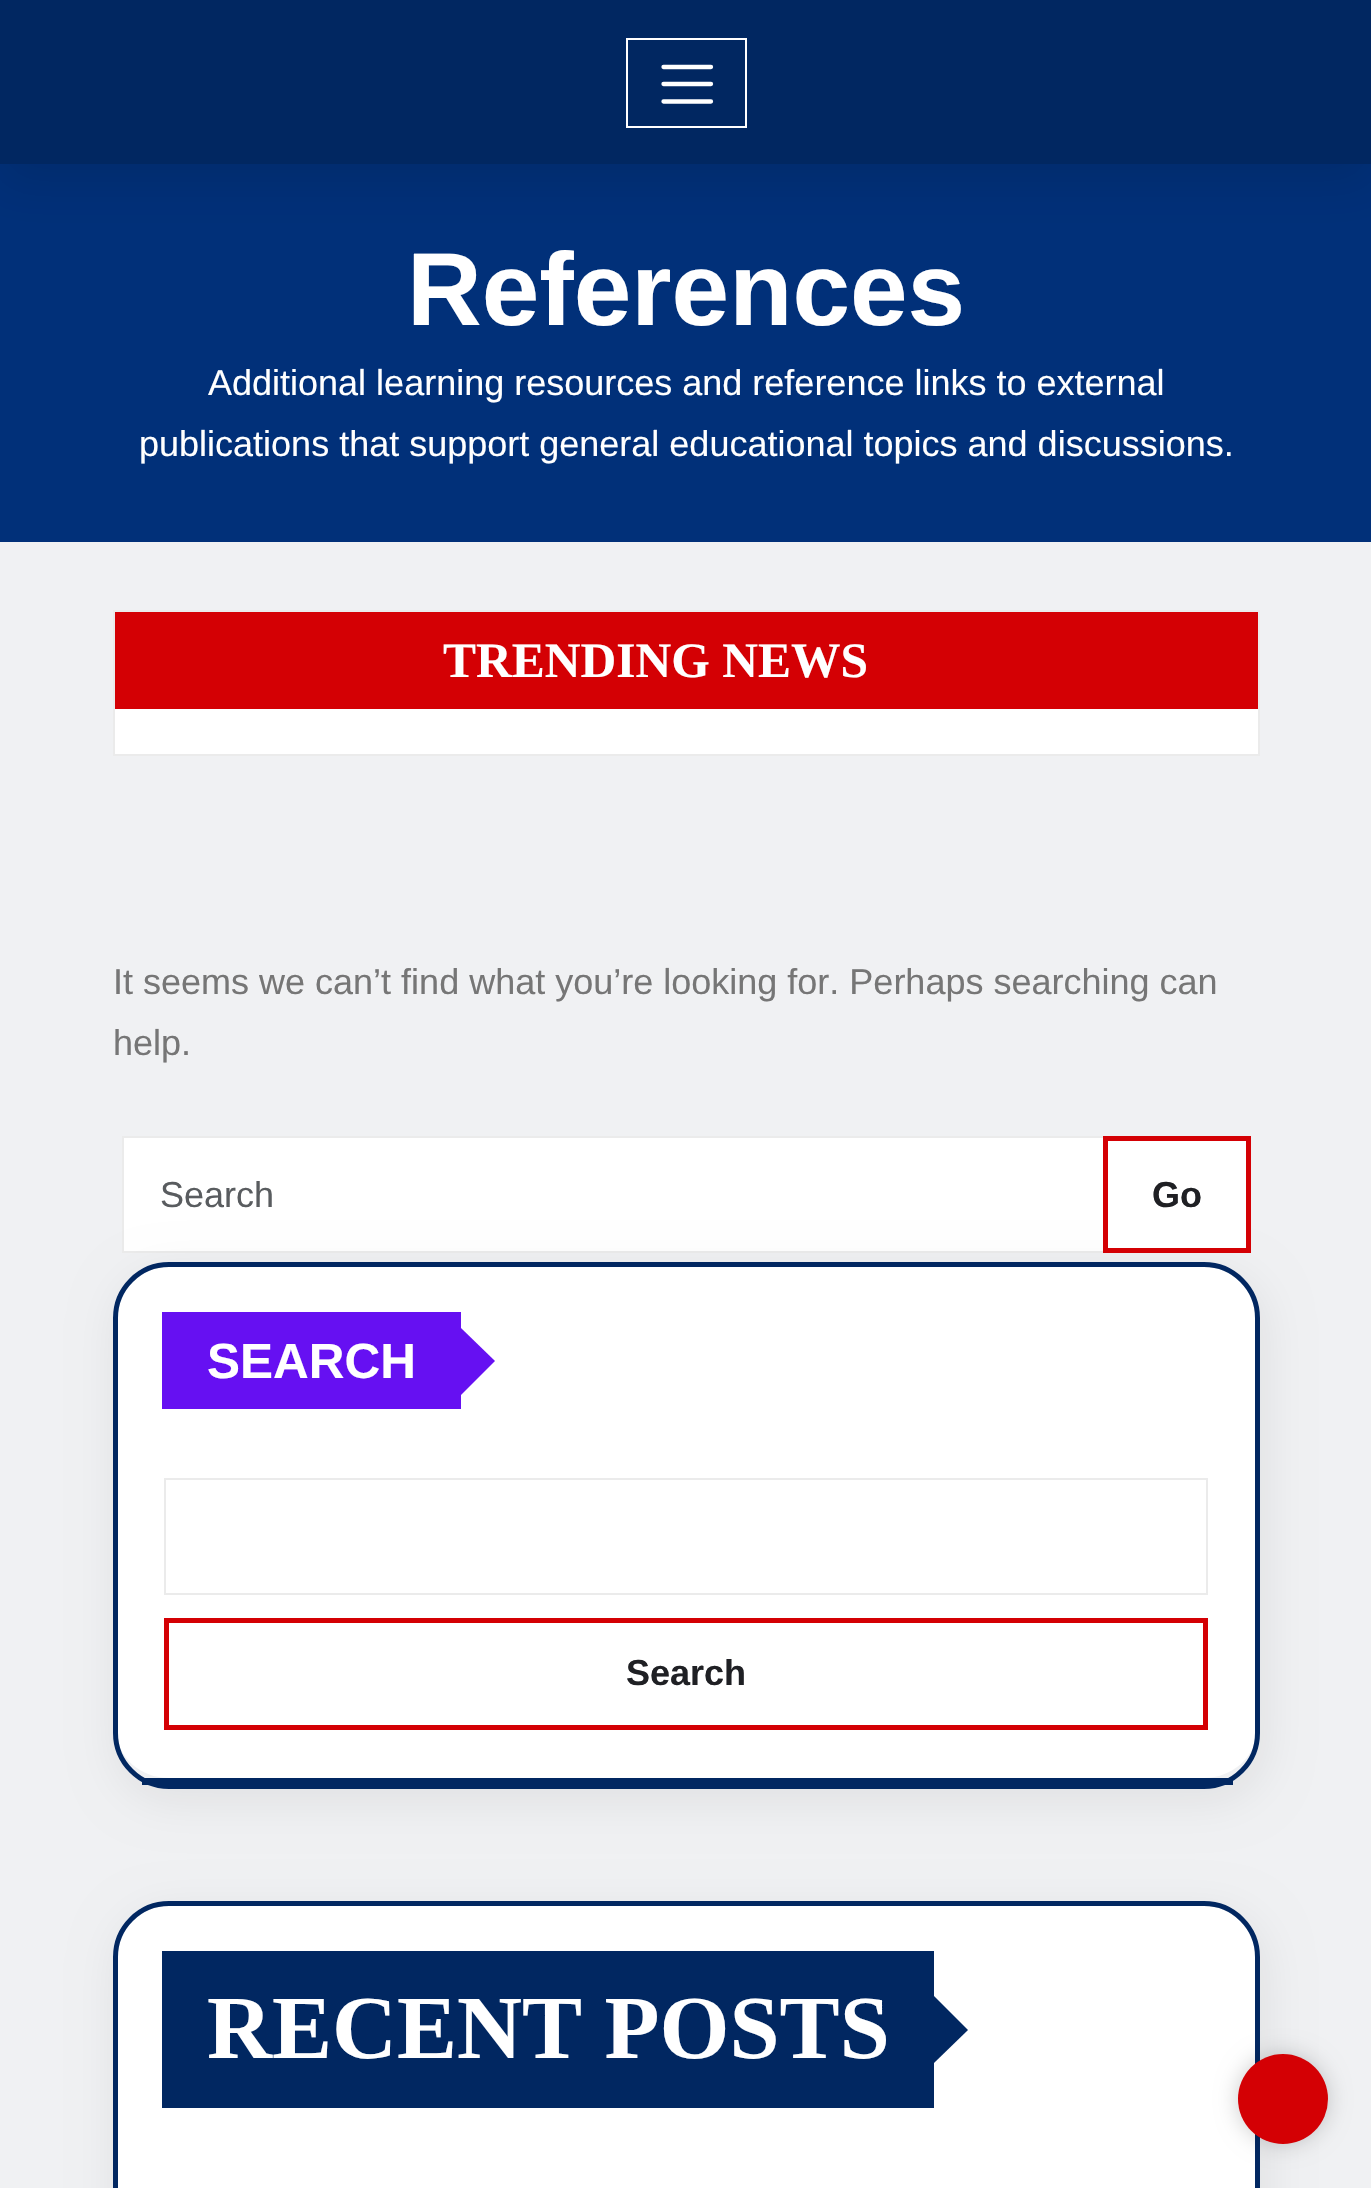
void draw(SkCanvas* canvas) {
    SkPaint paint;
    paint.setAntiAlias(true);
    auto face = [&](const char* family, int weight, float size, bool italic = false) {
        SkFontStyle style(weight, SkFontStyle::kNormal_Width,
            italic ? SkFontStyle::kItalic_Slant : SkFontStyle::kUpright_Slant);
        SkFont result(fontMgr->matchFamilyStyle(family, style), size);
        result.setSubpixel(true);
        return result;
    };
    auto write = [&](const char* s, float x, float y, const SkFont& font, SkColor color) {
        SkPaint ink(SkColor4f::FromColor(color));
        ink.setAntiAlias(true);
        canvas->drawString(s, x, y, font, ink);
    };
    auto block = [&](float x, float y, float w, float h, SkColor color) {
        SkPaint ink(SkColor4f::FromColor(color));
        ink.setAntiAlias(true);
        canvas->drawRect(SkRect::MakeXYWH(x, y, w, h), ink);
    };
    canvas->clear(SkColorSetRGB(240, 241, 243));
    block(0, 164, 1371, 378, SkColorSetRGB(1, 48, 121));
    paint.setColor(SkColorSetARGB(26, 0, 0, 0));
    paint.setMaskFilter(SkMaskFilter::MakeBlur(kNormal_SkBlurStyle, 22.5f));
    canvas->drawRect(SkRect::MakeXYWH(0, 18, 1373, 164), paint);
    paint.setMaskFilter(nullptr);
    block(0, 0, 1371, 164, SkColorSetRGB(1, 39, 97));
    paint.setStyle(SkPaint::kStroke_Style);
    paint.setStrokeWidth(2);
    paint.setColor(SK_ColorWHITE);
    canvas->drawRect(SkRect::MakeXYWH(627, 39, 119, 88), paint);
    paint.setStrokeWidth(4.3f);
    paint.setStrokeCap(SkPaint::kRound_Cap);
    canvas->drawPath(SkPathBuilder().moveTo(663.5f, 67).lineTo(711, 67).moveTo(663.5f, 84).lineTo(711, 84).moveTo(663.5f, 101.5f).lineTo(711, 101.5f).detach(), paint);
    auto kFont1 = face("Liberation Sans", 700, 103.5f);
    write("References", 407, 325, kFont1, SK_ColorWHITE);
    auto kFont2 = face("Liberation Sans", 400, 36);
    write("Additional learning resources and reference links to external", 208, 395, kFont2, SK_ColorWHITE);
    write("publications that support general educational topics and discussions.", 139, 456, kFont2, SK_ColorWHITE);
    block(115, 709, 1143, 45, SK_ColorWHITE);
    paint.setStrokeWidth(2);
    paint.setStrokeCap(SkPaint::kButt_Cap);
    paint.setColor(SkColorSetRGB(235, 235, 235));
    canvas->drawRect(SkRect::MakeXYWH(114, 611, 1145, 144), paint);
    block(115, 612, 1143, 97, SkColorSetRGB(212, 0, 4));
    auto kFont3 = face("Liberation Serif", 700, 49.5f);
    write("TRENDING NEWS", 443, 677, kFont3, SK_ColorWHITE);
    write("It seems we can’t find what you’re looking for. Perhaps searching can", 113, 994, kFont2, SkColorSetRGB(118, 118, 118));
    write("help.", 113, 1055, kFont2, SkColorSetRGB(118, 118, 118));
    paint.setStyle(SkPaint::kFill_Style);
    paint.setColor(SK_ColorWHITE);
    canvas->drawRect(SkRect::MakeXYWH(123, 1137, 981, 115), paint);
    paint.setStyle(SkPaint::kStroke_Style);
    paint.setColor(SkColorSetRGB(235, 235, 235));
    canvas->drawRect(SkRect::MakeXYWH(123, 1137, 981, 115), paint);
    write("Search", 160, 1207, kFont2, SkColorSetRGB(89, 92, 95));
    canvas->save();
    canvas->clipPath(SkPathBuilder(SkPathFillType::kEvenOdd).moveTo(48, 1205).lineTo(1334, 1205).lineTo(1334, 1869).lineTo(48, 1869).close().moveTo(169, 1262).lineTo(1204, 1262).cubicTo(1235, 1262, 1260, 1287, 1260, 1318).lineTo(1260, 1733).cubicTo(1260, 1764, 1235, 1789, 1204, 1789).lineTo(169, 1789).cubicTo(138, 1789, 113, 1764, 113, 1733).lineTo(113, 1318).cubicTo(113, 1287, 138, 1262, 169, 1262).close().detach(), true);
    paint.setStyle(SkPaint::kFill_Style);
    paint.setColor(SkColorSetARGB(18, 0, 0, 0));
    paint.setMaskFilter(SkMaskFilter::MakeBlur(kNormal_SkBlurStyle, 22.5f));
    canvas->drawRoundRect(SkRect::MakeXYWH(117, 1274, 1148, 526), 56, 56, paint);
    paint.setMaskFilter(nullptr);
    canvas->restore();
    paint.setColor(SK_ColorWHITE);
    canvas->drawRect(SkRect::MakeXYWH(1105.5f, 1138.5f, 143, 112), paint);
    paint.setStyle(SkPaint::kStroke_Style);
    paint.setStrokeWidth(5);
    paint.setColor(SkColorSetRGB(212, 0, 4));
    canvas->drawRect(SkRect::MakeXYWH(1105.5f, 1138.5f, 143, 112), paint);
    auto kFont4 = face("Liberation Sans", 700, 36);
    write("Go", 1152, 1207, kFont4, SkColorSetRGB(31, 32, 36));
    paint.setStyle(SkPaint::kFill_Style);
    paint.setColor(SK_ColorWHITE);
    canvas->drawPath(SkPathBuilder().moveTo(169, 1267).lineTo(1204, 1267).cubicTo(1232, 1267, 1256, 1290, 1256, 1318).lineTo(1256, 1732).cubicTo(1256, 1757, 1232, 1778, 1204, 1778).lineTo(169, 1778).cubicTo(140, 1778, 117, 1757, 117, 1732).lineTo(117, 1318).cubicTo(117, 1290, 140, 1267, 169, 1267).close().detach(), paint);
    paint.setStyle(SkPaint::kStroke_Style);
    paint.setColor(SkColorSetRGB(1, 39, 97));
    canvas->drawRoundRect(SkRect::MakeXYWH(115.5f, 1264.5f, 1142, 522), 53.5f, 53.5f, paint);
    block(142, 1778, 1091, 7, SkColorSetRGB(1, 39, 97));
    block(162, 1312, 299, 97, SkColorSetRGB(102, 16, 242));
    auto kFont5 = face("Liberation Sans", 700, 49.5f);
    write("SEARCH", 207, 1378, kFont5, SK_ColorWHITE);
    paint.setStyle(SkPaint::kFill_Style);
    paint.setColor(SkColorSetRGB(102, 16, 242));
    canvas->drawPath(SkPathBuilder().moveTo(461, 1395).lineTo(461, 1328).lineTo(495, 1361).close().detach(), paint);
    paint.setStyle(SkPaint::kStroke_Style);
    paint.setStrokeWidth(2);
    paint.setColor(SkColorSetRGB(235, 235, 235));
    canvas->drawRect(SkRect::MakeXYWH(165, 1479, 1042, 115), paint);
    paint.setStrokeWidth(5);
    paint.setColor(SkColorSetRGB(212, 0, 4));
    canvas->drawRect(SkRect::MakeXYWH(166.5f, 1620.5f, 1039, 107), paint);
    write("Search", 626, 1685, kFont4, SkColorSetRGB(31, 32, 36));
    paint.setStyle(SkPaint::kFill_Style);
    paint.setColor(SkColorSetARGB(18, 0, 0, 0));
    paint.setMaskFilter(SkMaskFilter::MakeBlur(kNormal_SkBlurStyle, 22.5f));
    canvas->drawRoundRect(SkRect::MakeXYWH(117, 1913, 1148, 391), 56, 56, paint);
    paint.setMaskFilter(nullptr);
    paint.setColor(SK_ColorWHITE);
    canvas->drawPath(SkPathBuilder().moveTo(169, 1906).lineTo(1204, 1906).cubicTo(1232, 1906, 1256, 1929, 1256, 1958).lineTo(1256, 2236).cubicTo(1256, 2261, 1232, 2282, 1204, 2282).lineTo(169, 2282).cubicTo(140, 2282, 117, 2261, 117, 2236).lineTo(117, 1958).cubicTo(117, 1929, 140, 1906, 169, 1906).close().detach(), paint);
    paint.setStyle(SkPaint::kStroke_Style);
    paint.setColor(SkColorSetRGB(1, 39, 97));
    canvas->drawRoundRect(SkRect::MakeXYWH(115.5f, 1903.5f, 1142, 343), 53.5f, 53.5f, paint);
    block(162, 1951, 772, 157, SkColorSetRGB(1, 39, 97));
    auto kFont6 = face("Liberation Serif", 700, 90);
    write("RECENT POSTS", 207, 2058, kFont6, SK_ColorWHITE);
    paint.setStyle(SkPaint::kFill_Style);
    canvas->drawPath(SkPathBuilder().moveTo(934, 2063).lineTo(934, 1996).lineTo(968, 2030).close().detach(), paint);
    paint.setColor(SkColorSetARGB(51, 0, 0, 0));
    paint.setMaskFilter(SkMaskFilter::MakeBlur(kNormal_SkBlurStyle, 11));
    canvas->drawRoundRect(SkRect::MakeXYWH(1238, 2054, 90, 90), 45, 45, paint);
    paint.setMaskFilter(nullptr);
    paint.setColor(SkColorSetRGB(212, 0, 4));
    canvas->drawCircle(1283, 2099, 45, paint);
}
